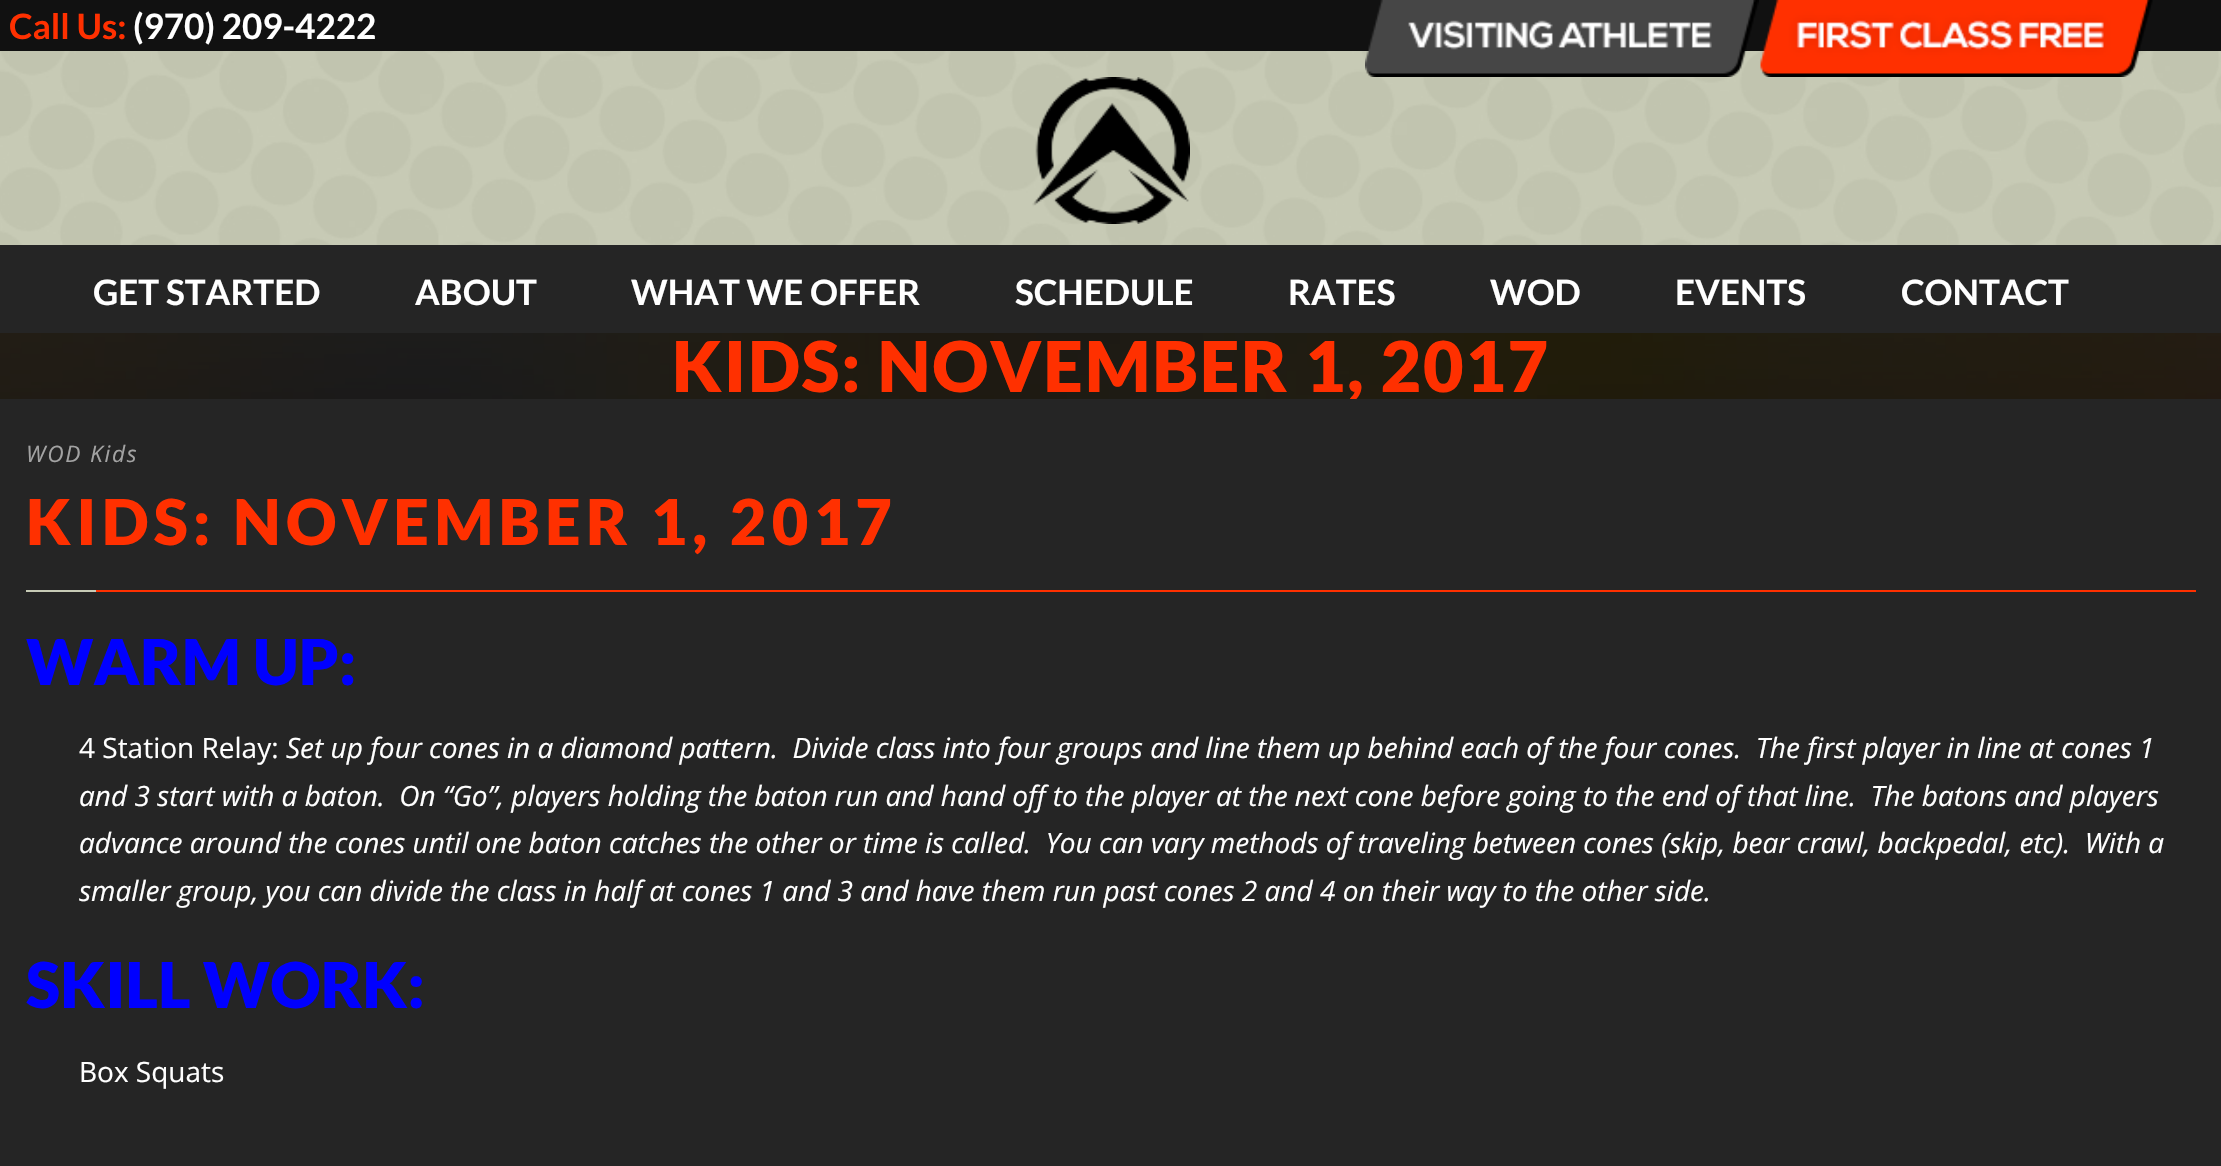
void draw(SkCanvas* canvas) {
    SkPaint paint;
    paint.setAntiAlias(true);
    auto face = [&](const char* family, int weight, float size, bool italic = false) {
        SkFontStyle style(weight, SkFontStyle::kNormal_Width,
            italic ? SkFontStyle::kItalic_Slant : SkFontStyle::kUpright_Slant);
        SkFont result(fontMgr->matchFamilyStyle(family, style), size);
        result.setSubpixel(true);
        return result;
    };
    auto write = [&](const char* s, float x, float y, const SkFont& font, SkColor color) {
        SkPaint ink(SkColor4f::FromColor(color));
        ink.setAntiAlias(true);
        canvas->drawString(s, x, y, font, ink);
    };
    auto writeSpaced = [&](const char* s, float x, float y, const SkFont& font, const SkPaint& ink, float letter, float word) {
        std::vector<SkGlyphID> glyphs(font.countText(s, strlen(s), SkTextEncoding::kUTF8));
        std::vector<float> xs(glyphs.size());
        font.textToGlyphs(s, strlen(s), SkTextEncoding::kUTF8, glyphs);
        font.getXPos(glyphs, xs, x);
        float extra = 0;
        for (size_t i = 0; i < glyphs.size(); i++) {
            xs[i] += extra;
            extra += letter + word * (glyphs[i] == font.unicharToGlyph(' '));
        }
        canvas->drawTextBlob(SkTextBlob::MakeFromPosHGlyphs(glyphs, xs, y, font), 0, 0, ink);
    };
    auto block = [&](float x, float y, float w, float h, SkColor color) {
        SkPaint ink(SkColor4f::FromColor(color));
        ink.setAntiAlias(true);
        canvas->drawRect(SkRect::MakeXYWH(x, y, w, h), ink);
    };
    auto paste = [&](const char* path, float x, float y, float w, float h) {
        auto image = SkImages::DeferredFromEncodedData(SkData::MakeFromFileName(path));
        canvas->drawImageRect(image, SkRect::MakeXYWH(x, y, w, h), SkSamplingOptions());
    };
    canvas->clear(SkColorSetRGB(37, 37, 37));
    block(0, 0, 2221, 51, SkColorSetRGB(17, 17, 17));
    auto kFont1 = face("Lato", 700, 35);
    write("Call Us:", 9, 39, kFont1, SkColorSetRGB(255, 48, 0));
    write("(970) 209-4222", 133, 39, kFont1, SK_ColorWHITE);
    paste("pic3.png", 0, 51, 2221, 194);
    paste("pic1.png", 1365, 0, 394, 77);
    paste("pic2.png", 1760, 0, 393, 77);
    paste("pic4.png", 1032, 77, 158, 147);
    write("GET STARTED", 93, 305, kFont1, SK_ColorWHITE);
    write("ABOUT", 415, 305, kFont1, SK_ColorWHITE);
    write("WHAT WE OFFER", 631, 305, kFont1, SK_ColorWHITE);
    write("SCHEDULE", 1015, 305, kFont1, SK_ColorWHITE);
    write("RATES", 1288, 305, kFont1, SK_ColorWHITE);
    write("WOD", 1490, 305, kFont1, SK_ColorWHITE);
    write("EVENTS", 1675, 305, kFont1, SK_ColorWHITE);
    write("CONTACT", 1901, 305, kFont1, SK_ColorWHITE);
    paste("pic5.png", 0, 333, 2221, 66);
    canvas->save();
    canvas->clipRect(SkRect::MakeXYWH(0, 333, 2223, 66));
    auto kFont2 = face("Lato", 900, 70);
    paint.setColor(SkColorSetRGB(255, 48, 0));
    writeSpaced("KIDS: NOVEMBER 1, 2017", 672, 392, kFont2, paint, 1.75f, 0);
    canvas->restore();
    block(96, 590, 2100, 2, SkColorSetRGB(255, 48, 0));
    auto kFont3 = face("Open Sans", 400, 22.75f, true);
    paint.setColor(SkColorSetRGB(163, 163, 163));
    writeSpaced("WOD Kids", 26, 462, kFont3, paint, 1.75f, 0);
    auto kFont4 = face("Lato", 900, 63);
    paint.setColor(SkColorSetRGB(255, 48, 0));
    writeSpaced("KIDS: NOVEMBER 1, 2017", 26, 545, kFont4, paint, 5.25f, 0);
    block(26, 590, 70, 2, SkColorSetRGB(199, 203, 182));
    write("WARM UP:", 26, 685, kFont4, SkColorSetRGB(0, 0, 255));
    auto kFont5 = face("Open Sans", 400, 28);
    write("4 Station Relay:", 79, 758, kFont5, SK_ColorWHITE);
    auto kFont6 = face("Open Sans", 400, 28, true);
    write("Set up four cones in a diamond pattern.  Divide class into four groups and line them up behind each of the four cones.  The first player in line at cones 1", 286, 758, kFont6, SK_ColorWHITE);
    write("and 3 start with a baton.  On “Go”, players holding the baton run and hand off to the player at the next cone before going to the end of that line.  The batons and players", 79, 806, kFont6, SK_ColorWHITE);
    write("advance around the cones until one baton catches the other or time is called.  You can vary methods of traveling between cones (skip, bear crawl, backpedal, etc).  With a", 79, 853, kFont6, SK_ColorWHITE);
    write("smaller group, you can divide the class in half at cones 1 and 3 and have them run past cones 2 and 4 on their way to the other side.", 79, 901, kFont6, SK_ColorWHITE);
    write("SKILL WORK:", 26, 1008, kFont4, SkColorSetRGB(0, 0, 255));
    write("Box Squats", 79, 1082, kFont5, SK_ColorWHITE);
}
